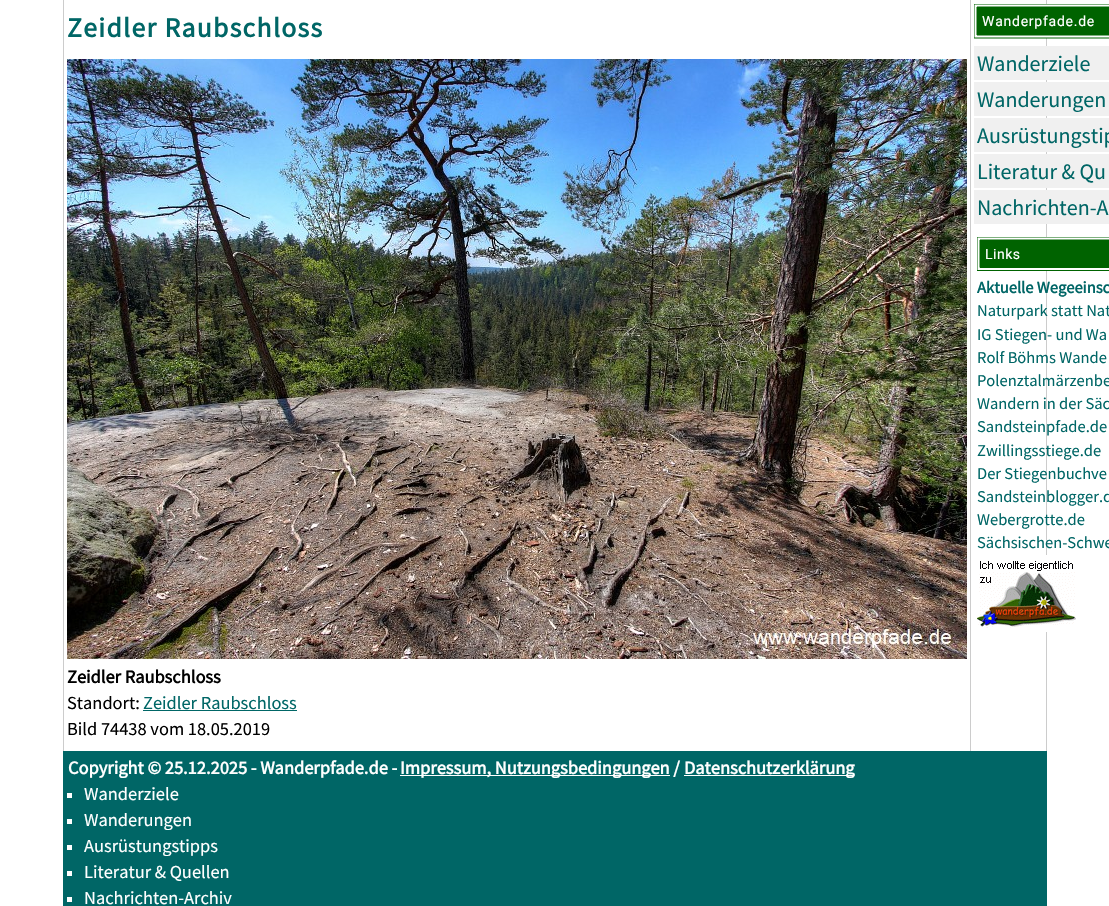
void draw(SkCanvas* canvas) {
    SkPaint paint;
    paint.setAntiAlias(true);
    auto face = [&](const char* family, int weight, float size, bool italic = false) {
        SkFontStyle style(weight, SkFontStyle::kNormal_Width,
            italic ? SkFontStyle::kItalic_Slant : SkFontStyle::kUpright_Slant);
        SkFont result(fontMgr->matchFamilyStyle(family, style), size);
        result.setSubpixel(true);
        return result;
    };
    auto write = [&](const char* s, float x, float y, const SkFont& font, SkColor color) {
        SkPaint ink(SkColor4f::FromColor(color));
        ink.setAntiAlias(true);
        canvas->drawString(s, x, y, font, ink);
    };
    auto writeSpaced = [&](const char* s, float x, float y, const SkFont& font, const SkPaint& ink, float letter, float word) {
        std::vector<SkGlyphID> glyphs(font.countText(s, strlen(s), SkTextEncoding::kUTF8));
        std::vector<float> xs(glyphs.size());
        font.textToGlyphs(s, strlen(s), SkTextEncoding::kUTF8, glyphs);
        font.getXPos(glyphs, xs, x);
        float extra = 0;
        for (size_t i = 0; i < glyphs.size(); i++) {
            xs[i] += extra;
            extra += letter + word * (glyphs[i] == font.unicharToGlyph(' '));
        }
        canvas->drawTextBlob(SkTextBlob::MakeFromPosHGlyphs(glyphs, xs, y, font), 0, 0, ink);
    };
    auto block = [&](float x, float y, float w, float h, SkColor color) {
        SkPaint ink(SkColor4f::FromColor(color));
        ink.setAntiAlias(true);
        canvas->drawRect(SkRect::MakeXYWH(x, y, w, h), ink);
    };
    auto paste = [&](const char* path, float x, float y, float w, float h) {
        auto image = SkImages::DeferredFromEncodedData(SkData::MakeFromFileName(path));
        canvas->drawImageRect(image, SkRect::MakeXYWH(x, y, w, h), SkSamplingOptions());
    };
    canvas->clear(SK_ColorWHITE);
    block(1046, 0, 1, 751, SkColorSetRGB(204, 204, 204));
    block(970, 0, 1, 751, SkColorSetRGB(204, 204, 204));
    block(63, 0, 1, 751, SkColorSetRGB(204, 204, 204));
    auto kFont1 = face("Source Sans Pro", 700, 27.5f);
    paint.setColor(SkColorSetRGB(0, 102, 102));
    writeSpaced("Zeidler Raubschloss", 67, 37, kFont1, paint, 1.4f, 0);
    paste("pic1.png", 67, 59, 900, 600);
    auto kFont2 = face("Source Sans Pro", 700, 18.4f);
    write("Zeidler Raubschloss", 67, 683, kFont2, SK_ColorBLACK);
    auto kFont3 = face("Source Sans Pro", 400, 18.4f);
    write("Standort:", 67, 709, kFont3, SK_ColorBLACK);
    write("Zeidler Raubschloss", 143, 709, kFont3, SkColorSetRGB(0, 102, 102));
    block(143, 710, 154, 1, SkColorSetRGB(0, 102, 102));
    write("Bild 74438 vom 18.05.2019", 67, 735, kFont3, SK_ColorBLACK);
    paint.setColor(SK_ColorWHITE);
    canvas->drawPath(SkPathBuilder(SkPathFillType::kEvenOdd).moveTo(974, 4).lineTo(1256, 4).lineTo(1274, 21).lineTo(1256, 38).lineTo(974, 38).close().detach(), paint);
    canvas->save();
    canvas->clipRect(SkRect::MakeXYWH(974, 4, 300, 35));
    paint.setStyle(SkPaint::kStroke_Style);
    paint.setStrokeWidth(1);
    paint.setColor(SkColorSetRGB(0, 99, 0));
    canvas->drawPath(SkPathBuilder().moveTo(974, 4).lineTo(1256, 4).lineTo(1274, 21).lineTo(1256, 38).lineTo(974, 38).close().detach(), paint);
    canvas->restore();
    paint.setStyle(SkPaint::kFill_Style);
    canvas->drawPath(SkPathBuilder(SkPathFillType::kEvenOdd).moveTo(977, 7).lineTo(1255, 7).lineTo(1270, 21).lineTo(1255, 35).lineTo(977, 35).close().detach(), paint);
    paint.setStyle(SkPaint::kStroke_Style);
    canvas->drawPath(SkPathBuilder(SkPathFillType::kEvenOdd).moveTo(977, 7).lineTo(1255, 7).lineTo(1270, 21).lineTo(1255, 35).lineTo(977, 35).close().detach(), paint);
    auto kFont4 = face("Roboto", 400, 14);
    paint.setStyle(SkPaint::kFill_Style);
    paint.setColor(SK_ColorWHITE);
    writeSpaced("Wanderpfade.de", 982, 26, kFont4, paint, 0.75f, 0);
    block(974, 46, 135, 34, SkColorSetRGB(240, 240, 240));
    auto kFont5 = face("Source Sans Pro", 400, 22);
    write("Wanderziele", 977, 71, kFont5, SkColorSetRGB(0, 102, 102));
    block(974, 82, 135, 34, SkColorSetRGB(240, 240, 240));
    write("Wanderungen", 977, 107, kFont5, SkColorSetRGB(0, 102, 102));
    block(974, 118, 135, 34, SkColorSetRGB(240, 240, 240));
    write("Ausrüstungstip", 977, 143, kFont5, SkColorSetRGB(0, 102, 102));
    block(974, 154, 135, 34, SkColorSetRGB(240, 240, 240));
    write("Literatur & Qu", 977, 179, kFont5, SkColorSetRGB(0, 102, 102));
    block(974, 190, 135, 34, SkColorSetRGB(240, 240, 240));
    write("Nachrichten-A", 977, 215, kFont5, SkColorSetRGB(0, 102, 102));
    canvas->drawPath(SkPathBuilder(SkPathFillType::kEvenOdd).moveTo(977, 237).lineTo(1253, 237).lineTo(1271, 254).lineTo(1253, 270).lineTo(977, 270).close().detach(), paint);
    canvas->save();
    canvas->clipRect(SkRect::MakeXYWH(977, 237, 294, 34));
    paint.setStyle(SkPaint::kStroke_Style);
    paint.setColor(SkColorSetRGB(0, 99, 0));
    canvas->drawPath(SkPathBuilder().moveTo(977, 237).lineTo(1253.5f, 237).lineTo(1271, 253.5f).lineTo(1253.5f, 270.5f).lineTo(977, 270.5f).close().detach(), paint);
    canvas->restore();
    paint.setStyle(SkPaint::kFill_Style);
    canvas->drawPath(SkPathBuilder(SkPathFillType::kEvenOdd).moveTo(980, 240).lineTo(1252, 240).lineTo(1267, 254).lineTo(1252, 267).lineTo(980, 267).close().detach(), paint);
    paint.setStyle(SkPaint::kStroke_Style);
    canvas->drawPath(SkPathBuilder().moveTo(980, 240).lineTo(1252.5f, 240).lineTo(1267, 253.5f).lineTo(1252.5f, 267.5f).lineTo(980, 267.5f).close().detach(), paint);
    paint.setStyle(SkPaint::kFill_Style);
    paint.setColor(SK_ColorWHITE);
    writeSpaced("Links", 985, 259, kFont4, paint, 0.5f, 0);
    auto kFont6 = face("Source Sans Pro", 700, 16.5f);
    write("Aktuelle Wegeeinsc", 977, 293, kFont6, SkColorSetRGB(0, 102, 102));
    auto kFont7 = face("Source Sans Pro", 400, 16.5f);
    write("Naturpark statt Nat", 977, 316, kFont7, SkColorSetRGB(0, 102, 102));
    write("IG Stiegen- und Wa", 977, 340, kFont7, SkColorSetRGB(0, 102, 102));
    write("Rolf Böhms Wande", 977, 363, kFont7, SkColorSetRGB(0, 102, 102));
    write("Polenztalmärzenbe", 977, 386, kFont7, SkColorSetRGB(0, 102, 102));
    write("Wandern in der Säc", 977, 409, kFont7, SkColorSetRGB(0, 102, 102));
    write("Sandsteinpfade.de", 977, 432, kFont7, SkColorSetRGB(0, 102, 102));
    write("Zwillingsstiege.de", 977, 456, kFont7, SkColorSetRGB(0, 102, 102));
    write("Der Stiegenbuchve", 977, 479, kFont7, SkColorSetRGB(0, 102, 102));
    write("Sandsteinblogger.d", 977, 502, kFont7, SkColorSetRGB(0, 102, 102));
    write("Webergrotte.de", 977, 525, kFont7, SkColorSetRGB(0, 102, 102));
    write("Sächsischen-Schwe", 977, 548, kFont7, SkColorSetRGB(0, 102, 102));
    paste("pic2.png", 977, 555, 99, 77);
    block(63, 751, 984, 155, SkColorSetRGB(0, 102, 102));
    write("Copyright © 25.12.2025 - Wanderpfade.de -", 68, 774, kFont2, SK_ColorWHITE);
    block(400, 775, 270, 1, SK_ColorWHITE);
    write("Impressum, Nutzungsbedingungen /", 400, 774, kFont2, SK_ColorWHITE);
    block(684, 775, 170, 1, SK_ColorWHITE);
    write("Datenschutzerklärung", 684, 774, kFont2, SK_ColorWHITE);
    block(67, 793, 5, 5, SK_ColorWHITE);
    write("Wanderziele", 84, 800, kFont3, SK_ColorWHITE);
    block(67, 819, 5, 5, SK_ColorWHITE);
    write("Wanderungen", 84, 826, kFont3, SK_ColorWHITE);
    block(67, 845, 5, 5, SK_ColorWHITE);
    write("Ausrüstungstipps", 84, 852, kFont3, SK_ColorWHITE);
    block(67, 871, 5, 5, SK_ColorWHITE);
    write("Literatur & Quellen", 84, 878, kFont3, SK_ColorWHITE);
    block(67, 897, 5, 5, SK_ColorWHITE);
    write("Nachrichten-Archiv", 84, 904, kFont3, SK_ColorWHITE);
}
